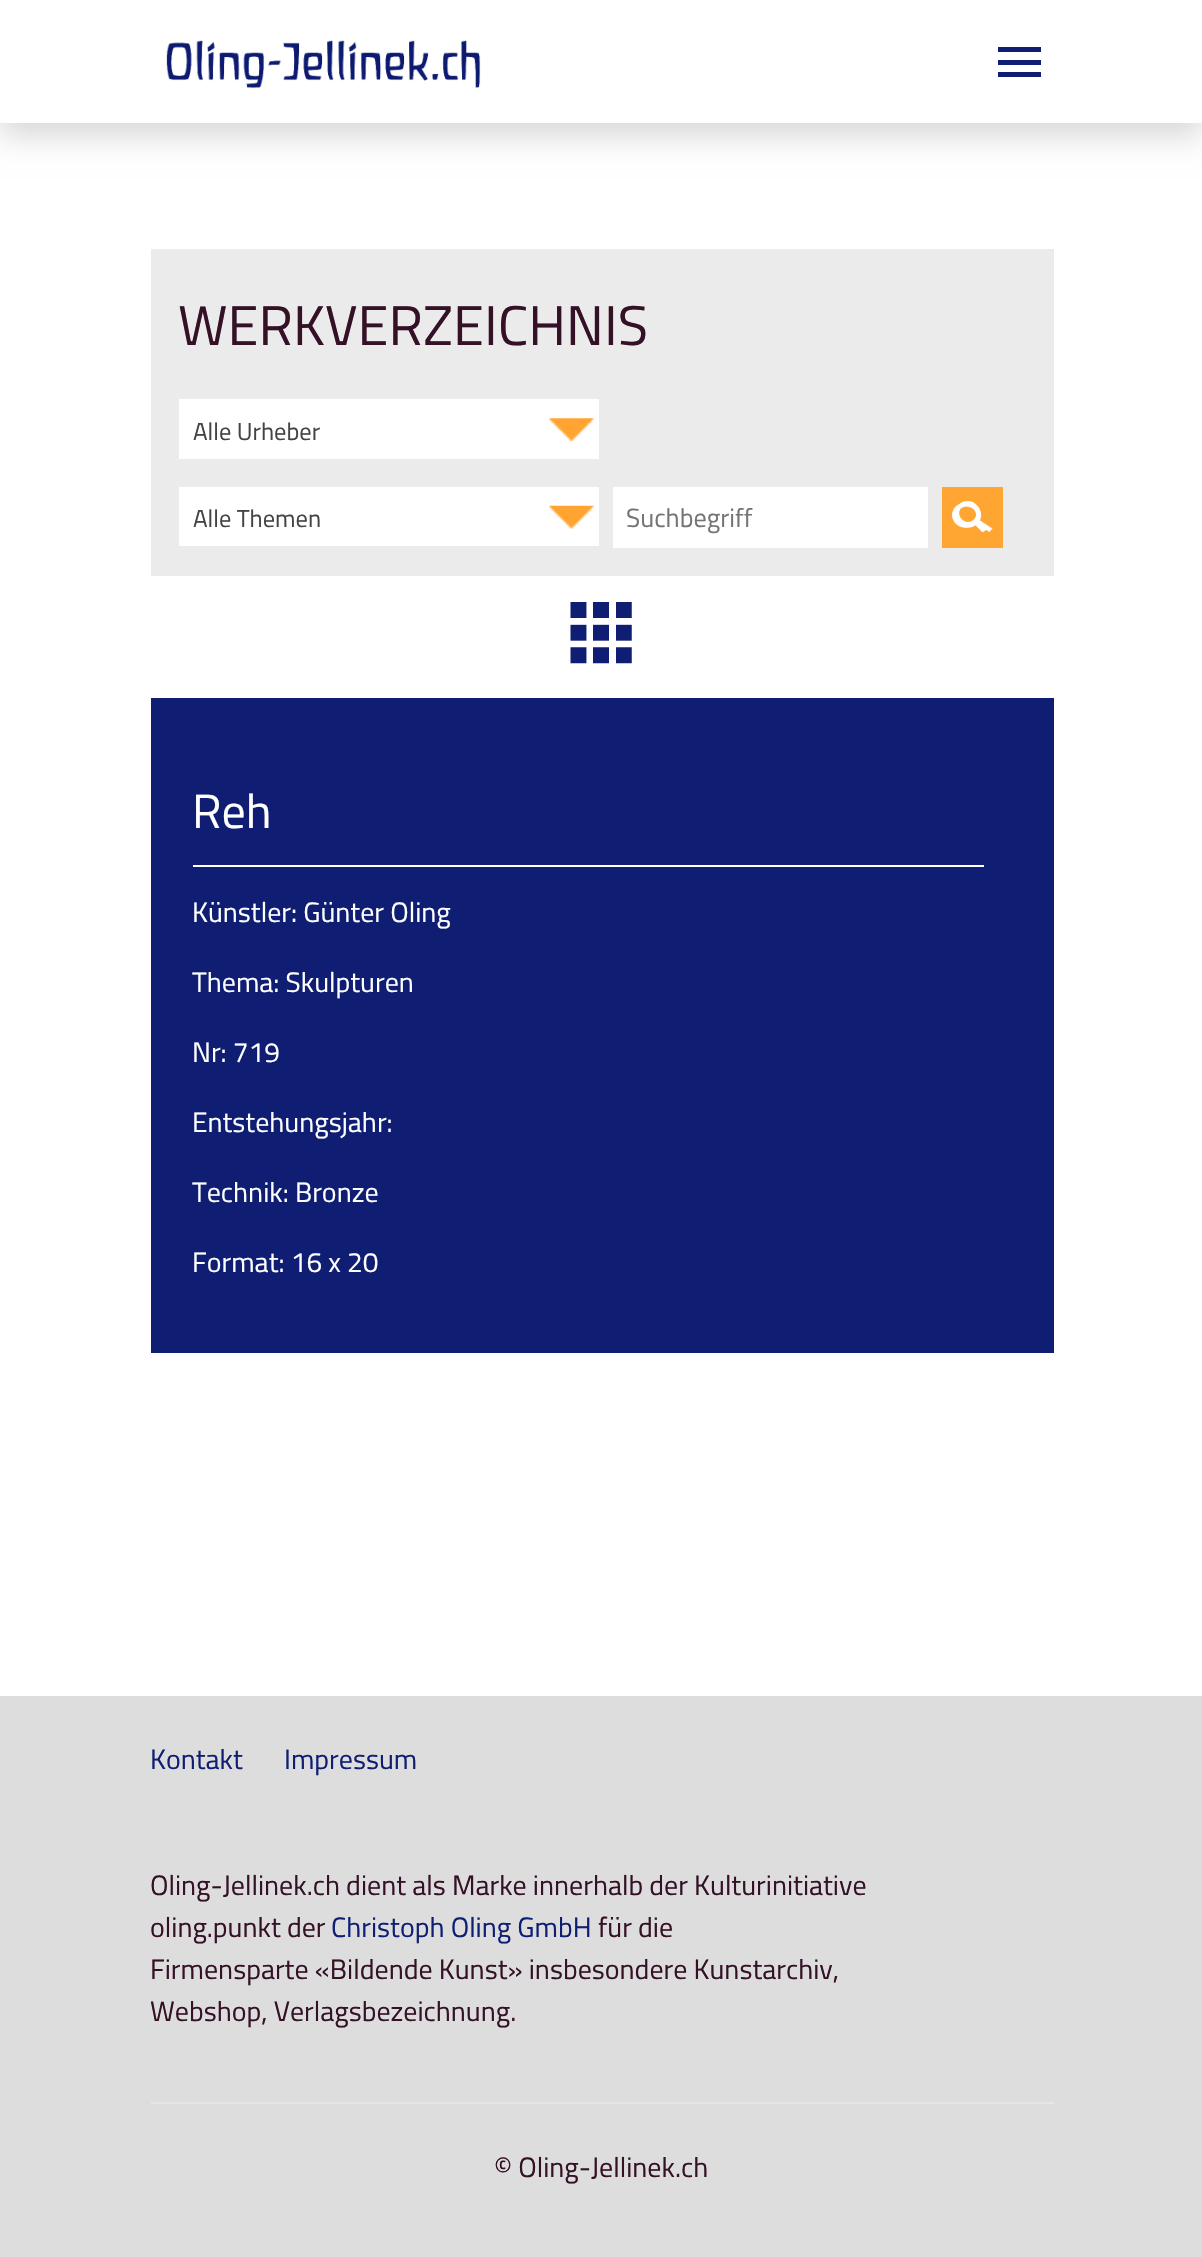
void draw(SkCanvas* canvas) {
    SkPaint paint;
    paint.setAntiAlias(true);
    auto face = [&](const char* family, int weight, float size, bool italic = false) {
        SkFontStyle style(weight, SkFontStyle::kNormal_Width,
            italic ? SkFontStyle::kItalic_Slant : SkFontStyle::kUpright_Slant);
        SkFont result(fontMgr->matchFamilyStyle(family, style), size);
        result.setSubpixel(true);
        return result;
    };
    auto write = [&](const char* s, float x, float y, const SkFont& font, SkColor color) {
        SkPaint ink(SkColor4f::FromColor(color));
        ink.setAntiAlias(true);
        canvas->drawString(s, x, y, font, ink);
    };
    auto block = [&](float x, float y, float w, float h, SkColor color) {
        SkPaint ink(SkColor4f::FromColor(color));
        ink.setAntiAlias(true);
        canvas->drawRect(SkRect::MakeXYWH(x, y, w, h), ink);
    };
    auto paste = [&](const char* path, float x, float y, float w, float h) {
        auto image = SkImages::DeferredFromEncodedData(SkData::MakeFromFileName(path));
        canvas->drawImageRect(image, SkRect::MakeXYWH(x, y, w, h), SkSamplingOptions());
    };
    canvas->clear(SK_ColorWHITE);
    paint.setColor(SkColorSetARGB(38, 0, 0, 0));
    paint.setMaskFilter(SkMaskFilter::MakeBlur(kNormal_SkBlurStyle, 14));
    canvas->drawRect(SkRect::MakeXYWH(0, 14, 1202, 123), paint);
    paint.setMaskFilter(nullptr);
    block(0, 0, 1202, 123, SK_ColorWHITE);
    paste("pic1.png", 166, 40, 315, 49);
    block(998, 47, 43, 5, SkColorSetRGB(15, 30, 115));
    block(998, 60, 43, 5, SkColorSetRGB(15, 30, 115));
    block(998, 72, 43, 5, SkColorSetRGB(15, 30, 115));
    block(151, 249, 903, 327, SkColorSetRGB(235, 235, 235));
    auto kFont1 = face("Titillium Web", 400, 56);
    write("WERKVERZEICHNIS", 178, 345, kFont1, SkColorSetRGB(52, 17, 38));
    block(179, 399, 420, 60, SK_ColorWHITE);
    paste("pic2.png", 549, 418, 45, 23);
    auto kFont2 = face("Titillium Web", 400, 24.5f);
    write("Alle Urheber", 193, 440, kFont2, SkColorSetRGB(68, 68, 68));
    block(179, 487, 420, 59, SK_ColorWHITE);
    paste("pic3.png", 549, 505, 45, 24);
    write("Alle Themen", 193, 527, kFont2, SkColorSetRGB(68, 68, 68));
    block(613, 487, 315, 61, SK_ColorWHITE);
    auto kFont3 = face("Titillium Web", 400, 26.25f);
    write("Suchbegriff", 626, 527, kFont3, SkColorSetRGB(117, 117, 117));
    block(942, 487, 61, 61, SkColorSetRGB(255, 165, 50));
    paste("pic4.png", 952, 502, 41, 30);
    paste("pic5.png", 956, 500, 30, 32);
    paste("pic6.png", 570, 602, 62, 62);
    block(151, 698, 903, 655, SkColorSetRGB(15, 30, 115));
    block(193, 865, 791, 2, SK_ColorWHITE);
    auto kFont4 = face("Titillium Web", 400, 48);
    write("Reh", 192, 828, kFont4, SK_ColorWHITE);
    auto kFont5 = face("Titillium Web", 400, 28);
    write("Künstler: Günter Oling", 192, 922, kFont5, SK_ColorWHITE);
    write("Thema: Skulpturen", 192, 992, kFont5, SK_ColorWHITE);
    write("Nr: 719", 192, 1062, kFont5, SK_ColorWHITE);
    write("Entstehungsjahr:", 192, 1132, kFont5, SK_ColorWHITE);
    write("Technik: Bronze", 192, 1202, kFont5, SK_ColorWHITE);
    write("Format: 16 x 20", 192, 1272, kFont5, SK_ColorWHITE);
    block(0, 1696, 1202, 561, SkColorSetRGB(221, 221, 221));
    write("Kontakt", 150, 1769, kFont5, SkColorSetRGB(15, 30, 115));
    write("Impressum", 284, 1769, kFont5, SkColorSetRGB(15, 30, 115));
    write("Oling-Jellinek.ch dient als Marke innerhalb der Kulturinitiative", 150, 1895, kFont5, SkColorSetRGB(52, 17, 38));
    write("oling.punkt der", 150, 1937, kFont5, SkColorSetRGB(52, 17, 38));
    write("Christoph Oling GmbH", 331, 1937, kFont5, SkColorSetRGB(15, 30, 115));
    write("für die", 598, 1937, kFont5, SkColorSetRGB(52, 17, 38));
    write("Firmensparte «Bildende Kunst» insbesondere Kunstarchiv,", 150, 1979, kFont5, SkColorSetRGB(52, 17, 38));
    canvas->save();
    canvas->clipRect(SkRect::MakeXYWH(151, 1864, 798, 196));
    write("Webshop, Verlagsbezeichnung.", 150, 2021, kFont5, SkColorSetRGB(52, 17, 38));
    canvas->restore();
    block(151, 2102, 903, 2, SkColorSetRGB(230, 230, 230));
    write("© Oling-Jellinek.ch", 494, 2177, kFont5, SkColorSetRGB(52, 17, 38));
}
